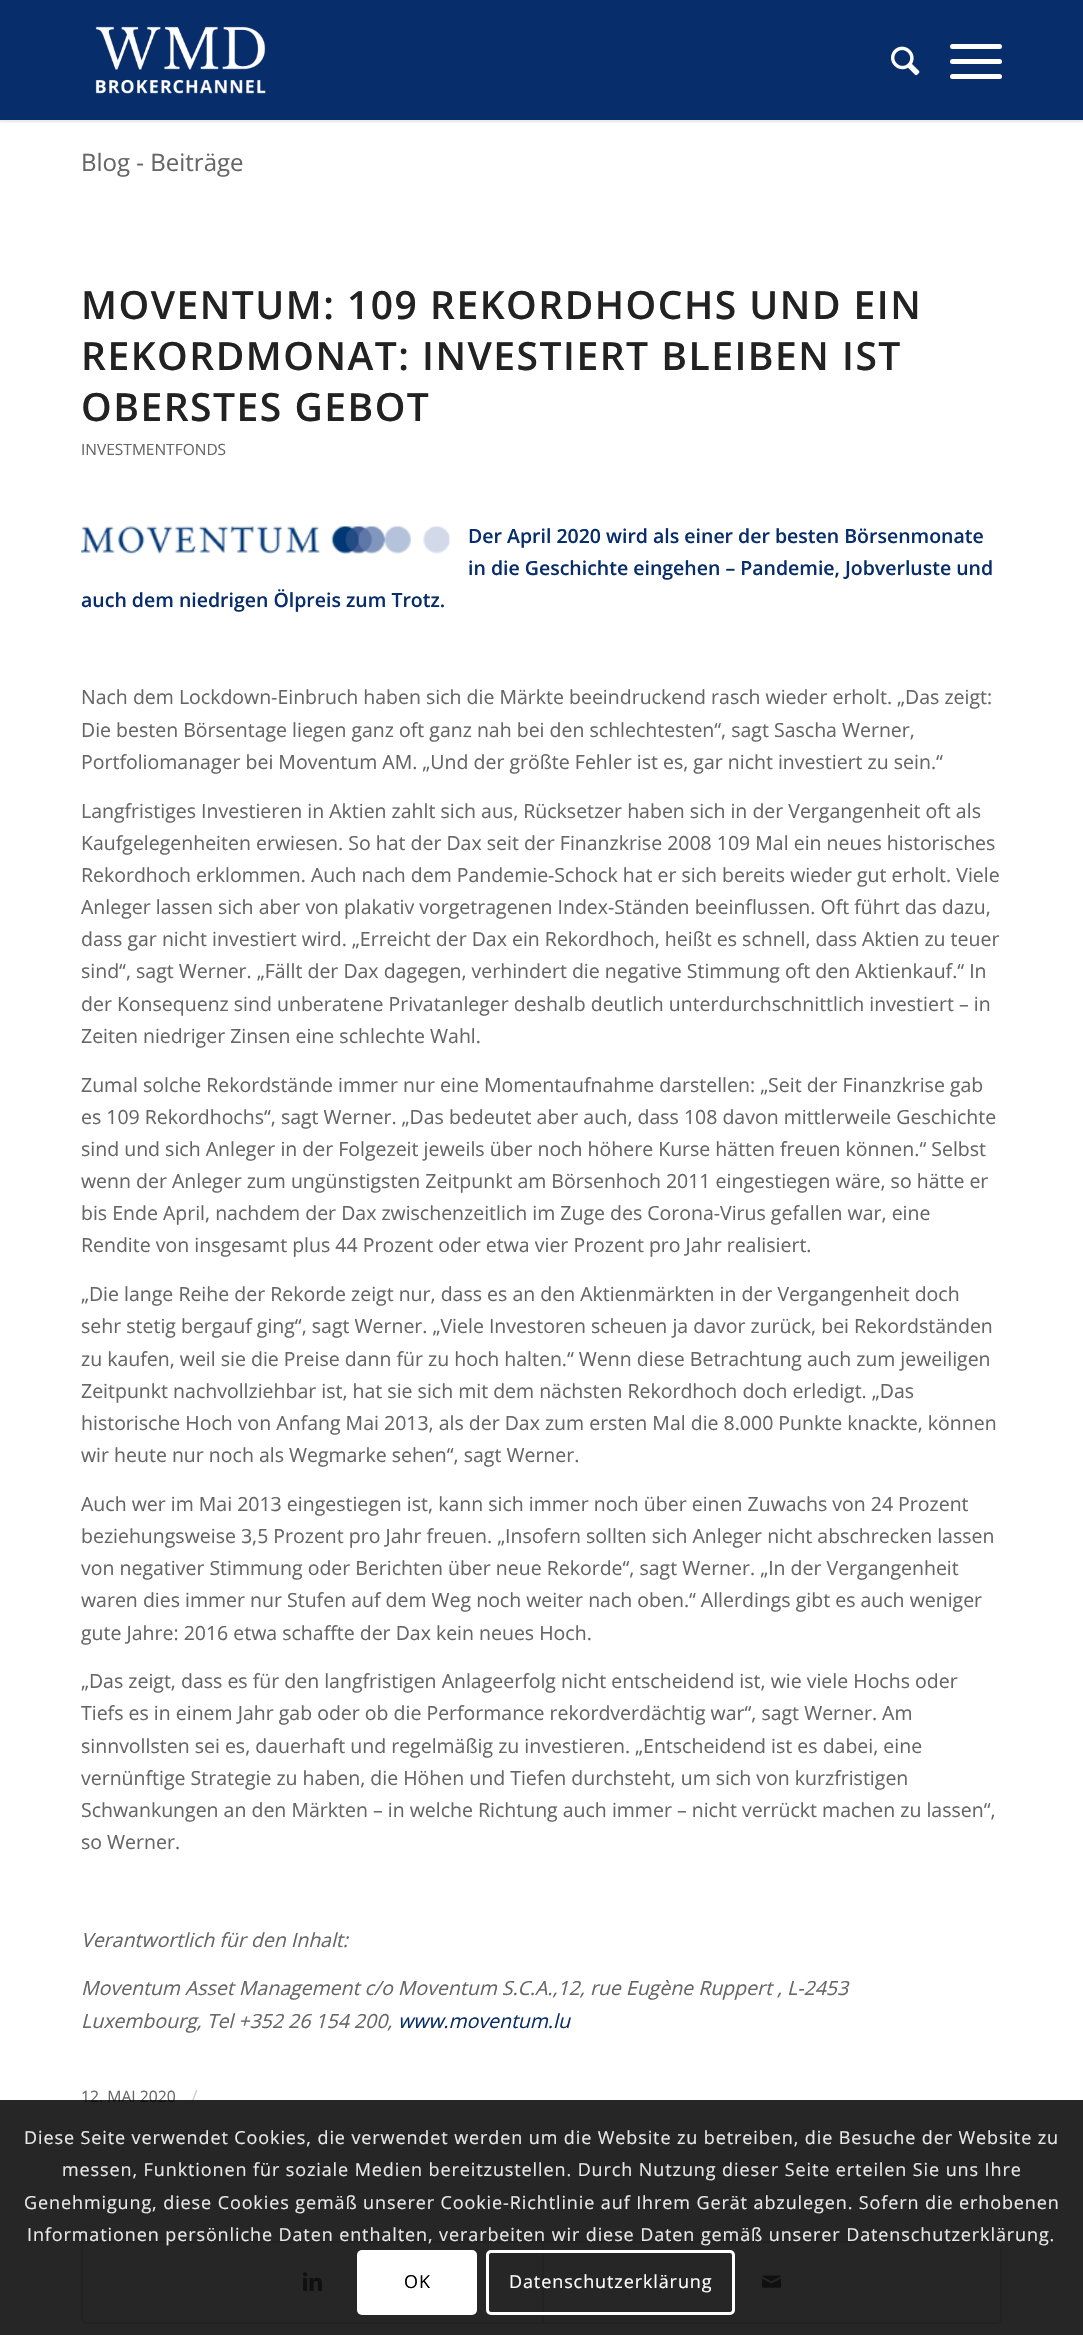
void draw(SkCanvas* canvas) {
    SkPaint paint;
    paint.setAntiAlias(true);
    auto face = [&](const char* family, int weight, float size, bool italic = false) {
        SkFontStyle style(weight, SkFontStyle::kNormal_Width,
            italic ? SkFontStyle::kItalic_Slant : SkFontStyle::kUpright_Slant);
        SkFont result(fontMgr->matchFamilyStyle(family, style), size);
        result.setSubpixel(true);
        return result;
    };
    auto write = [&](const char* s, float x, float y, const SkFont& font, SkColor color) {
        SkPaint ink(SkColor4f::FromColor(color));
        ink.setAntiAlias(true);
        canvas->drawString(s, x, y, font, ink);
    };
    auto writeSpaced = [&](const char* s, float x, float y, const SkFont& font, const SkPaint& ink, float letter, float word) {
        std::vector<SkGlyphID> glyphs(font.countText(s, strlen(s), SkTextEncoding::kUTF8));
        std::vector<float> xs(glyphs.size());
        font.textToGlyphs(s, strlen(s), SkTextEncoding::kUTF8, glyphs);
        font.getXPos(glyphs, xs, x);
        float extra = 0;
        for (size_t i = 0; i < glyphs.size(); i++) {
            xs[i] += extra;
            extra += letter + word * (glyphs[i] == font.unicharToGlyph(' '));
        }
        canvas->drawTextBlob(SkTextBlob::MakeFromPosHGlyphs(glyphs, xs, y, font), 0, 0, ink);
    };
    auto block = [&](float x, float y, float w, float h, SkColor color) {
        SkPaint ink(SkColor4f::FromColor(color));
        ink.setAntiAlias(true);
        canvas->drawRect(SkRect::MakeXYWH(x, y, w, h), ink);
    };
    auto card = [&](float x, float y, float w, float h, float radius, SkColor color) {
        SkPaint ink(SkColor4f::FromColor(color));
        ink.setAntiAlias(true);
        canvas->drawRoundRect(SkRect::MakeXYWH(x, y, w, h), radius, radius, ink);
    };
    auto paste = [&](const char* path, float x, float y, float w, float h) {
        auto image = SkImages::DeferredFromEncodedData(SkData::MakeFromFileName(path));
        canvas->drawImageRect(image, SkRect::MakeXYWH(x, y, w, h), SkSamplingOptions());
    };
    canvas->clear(SkColorSetRGB(7, 45, 107));
    block(0, 120, 1083, 2215, SK_ColorWHITE);
    canvas->save();
    canvas->clipRect(SkRect::MakeXYWH(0, 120, 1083, 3));
    paint.setColor(SkColorSetARGB(26, 0, 0, 0));
    paint.setMaskFilter(SkMaskFilter::MakeBlur(kNormal_SkBlurStyle, 1.5f));
    canvas->drawRect(SkRect::MakeXYWH(-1, -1, 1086, 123), paint);
    paint.setMaskFilter(nullptr);
    canvas->restore();
    paste("pic1.png", 95, 26, 171, 68);
    paste("pic2.png", 891, 46, 29, 30);
    card(950, 59, 52, 5, 2.5f, SK_ColorWHITE);
    card(950, 44, 52, 5, 2.5f, SK_ColorWHITE);
    card(950, 74, 52, 5, 2.5f, SK_ColorWHITE);
    auto kFont1 = face("Open Sans", 400, 24);
    write("Blog - Beiträge", 81, 171, kFont1, SkColorSetRGB(102, 102, 102));
    auto kFont2 = face("Open Sans", 600, 39);
    paint.setColor(SkColorSetRGB(34, 34, 34));
    writeSpaced("MOVENTUM: 109 REKORDHOCHS UND EIN", 81, 319, kFont2, paint, 1.5f, 0);
    writeSpaced("REKORDMONAT: INVESTIERT BLEIBEN IST", 81, 370, kFont2, paint, 1.5f, 0);
    writeSpaced("OBERSTES GEBOT", 81, 421, kFont2, paint, 1.5f, 0);
    auto kFont3 = face("Open Sans", 400, 15.5f);
    write("INVESTMENTFONDS", 81, 455, kFont3, SkColorSetRGB(102, 102, 102));
    paste("pic3.png", 81, 526, 369, 28);
    auto kFont4 = face("Open Sans", 600, 19.5f);
    write("Der April 2020 wird als einer der besten Börsenmonate", 468, 543, kFont4, SkColorSetRGB(7, 45, 107));
    write("in die Geschichte eingehen – Pandemie, Jobverluste und", 468, 575, kFont4, SkColorSetRGB(7, 45, 107));
    write("auch dem niedrigen Ölpreis zum Trotz.", 81, 607, kFont4, SkColorSetRGB(7, 45, 107));
    auto kFont5 = face("Open Sans", 400, 19.5f);
    write("Nach dem Lockdown-Einbruch haben sich die Märkte beeindruckend rasch wieder erholt. „Das zeigt:", 81, 704, kFont5, SkColorSetRGB(102, 102, 102));
    write("Die besten Börsentage liegen ganz oft ganz nah bei den schlechtesten“, sagt Sascha Werner,", 81, 737, kFont5, SkColorSetRGB(102, 102, 102));
    write("Portfoliomanager bei Moventum AM. „Und der größte Fehler ist es, gar nicht investiert zu sein.“", 81, 769, kFont5, SkColorSetRGB(102, 102, 102));
    write("Langfristiges Investieren in Aktien zahlt sich aus, Rücksetzer haben sich in der Vergangenheit oft als", 81, 818, kFont5, SkColorSetRGB(102, 102, 102));
    write("Kaufgelegenheiten erwiesen. So hat der Dax seit der Finanzkrise 2008 109 Mal ein neues historisches", 81, 850, kFont5, SkColorSetRGB(102, 102, 102));
    write("Rekordhoch erklommen. Auch nach dem Pandemie-Schock hat er sich bereits wieder gut erholt. Viele", 81, 882, kFont5, SkColorSetRGB(102, 102, 102));
    write("Anleger lassen sich aber von plakativ vorgetragenen Index-Ständen beeinflussen. Oft führt das dazu,", 81, 914, kFont5, SkColorSetRGB(102, 102, 102));
    write("dass gar nicht investiert wird. „Erreicht der Dax ein Rekordhoch, heißt es schnell, dass Aktien zu teuer", 81, 946, kFont5, SkColorSetRGB(102, 102, 102));
    write("sind“, sagt Werner. „Fällt der Dax dagegen, verhindert die negative Stimmung oft den Aktienkauf.“ In", 81, 978, kFont5, SkColorSetRGB(102, 102, 102));
    write("der Konsequenz sind unberatene Privatanleger deshalb deutlich unterdurchschnittlich investiert – in", 81, 1011, kFont5, SkColorSetRGB(102, 102, 102));
    write("Zeiten niedriger Zinsen eine schlechte Wahl.", 81, 1043, kFont5, SkColorSetRGB(102, 102, 102));
    write("Zumal solche Rekordstände immer nur eine Momentaufnahme darstellen: „Seit der Finanzkrise gab", 81, 1092, kFont5, SkColorSetRGB(102, 102, 102));
    write("es 109 Rekordhochs“, sagt Werner. „Das bedeutet aber auch, dass 108 davon mittlerweile Geschichte", 81, 1124, kFont5, SkColorSetRGB(102, 102, 102));
    write("sind und sich Anleger in der Folgezeit jeweils über noch höhere Kurse hätten freuen können.“ Selbst", 81, 1156, kFont5, SkColorSetRGB(102, 102, 102));
    write("wenn der Anleger zum ungünstigsten Zeitpunkt am Börsenhoch 2011 eingestiegen wäre, so hätte er", 81, 1188, kFont5, SkColorSetRGB(102, 102, 102));
    write("bis Ende April, nachdem der Dax zwischenzeitlich im Zuge des Corona-Virus gefallen war, eine", 81, 1220, kFont5, SkColorSetRGB(102, 102, 102));
    write("Rendite von insgesamt plus 44 Prozent oder etwa vier Prozent pro Jahr realisiert.", 81, 1252, kFont5, SkColorSetRGB(102, 102, 102));
    write("„Die lange Reihe der Rekorde zeigt nur, dass es an den Aktienmärkten in der Vergangenheit doch", 81, 1301, kFont5, SkColorSetRGB(102, 102, 102));
    write("sehr stetig bergauf ging“, sagt Werner. „Viele Investoren scheuen ja davor zurück, bei Rekordständen", 81, 1333, kFont5, SkColorSetRGB(102, 102, 102));
    write("zu kaufen, weil sie die Preise dann für zu hoch halten.“ Wenn diese Betrachtung auch zum jeweiligen", 81, 1366, kFont5, SkColorSetRGB(102, 102, 102));
    write("Zeitpunkt nachvollziehbar ist, hat sie sich mit dem nächsten Rekordhoch doch erledigt. „Das", 81, 1398, kFont5, SkColorSetRGB(102, 102, 102));
    write("historische Hoch von Anfang Mai 2013, als der Dax zum ersten Mal die 8.000 Punkte knackte, können", 81, 1430, kFont5, SkColorSetRGB(102, 102, 102));
    write("wir heute nur noch als Wegmarke sehen“, sagt Werner.", 81, 1462, kFont5, SkColorSetRGB(102, 102, 102));
    write("Auch wer im Mai 2013 eingestiegen ist, kann sich immer noch über einen Zuwachs von 24 Prozent", 81, 1511, kFont5, SkColorSetRGB(102, 102, 102));
    write("beziehungsweise 3,5 Prozent pro Jahr freuen. „Insofern sollten sich Anleger nicht abschrecken lassen", 81, 1543, kFont5, SkColorSetRGB(102, 102, 102));
    write("von negativer Stimmung oder Berichten über neue Rekorde“, sagt Werner. „In der Vergangenheit", 81, 1575, kFont5, SkColorSetRGB(102, 102, 102));
    write("waren dies immer nur Stufen auf dem Weg noch weiter nach oben.“ Allerdings gibt es auch weniger", 81, 1607, kFont5, SkColorSetRGB(102, 102, 102));
    write("gute Jahre: 2016 etwa schaffte der Dax kein neues Hoch.", 81, 1640, kFont5, SkColorSetRGB(102, 102, 102));
    write("„Das zeigt, dass es für den langfristigen Anlageerfolg nicht entscheidend ist, wie viele Hochs oder", 81, 1688, kFont5, SkColorSetRGB(102, 102, 102));
    write("Tiefs es in einem Jahr gab oder ob die Performance rekordverdächtig war“, sagt Werner. Am", 81, 1720, kFont5, SkColorSetRGB(102, 102, 102));
    write("sinnvollsten sei es, dauerhaft und regelmäßig zu investieren. „Entscheidend ist es dabei, eine", 81, 1753, kFont5, SkColorSetRGB(102, 102, 102));
    write("vernünftige Strategie zu haben, die Höhen und Tiefen durchsteht, um sich von kurzfristigen", 81, 1785, kFont5, SkColorSetRGB(102, 102, 102));
    write("Schwankungen an den Märkten – in welche Richtung auch immer – nicht verrückt machen zu lassen“,", 81, 1817, kFont5, SkColorSetRGB(102, 102, 102));
    write("so Werner.", 81, 1849, kFont5, SkColorSetRGB(102, 102, 102));
    auto kFont6 = face("Open Sans", 400, 19.5f, true);
    write("Verantwortlich für den Inhalt:", 81, 1947, kFont6, SkColorSetRGB(102, 102, 102));
    write("Moventum Asset Management c/o Moventum S.C.A.,12, rue Eugène Ruppert , L-2453", 81, 1995, kFont6, SkColorSetRGB(102, 102, 102));
    write("Luxembourg, Tel +352 26 154 200,", 81, 2028, kFont6, SkColorSetRGB(102, 102, 102));
    write("www.moventum.lu", 398, 2028, kFont6, SkColorSetRGB(7, 45, 107));
    auto kFont7 = face("Open Sans", 400, 15.75f);
    write("12. MAI 2020", 81, 2102, kFont7, SkColorSetRGB(102, 102, 102));
    auto kFont8 = face("Open Sans", 400, 18);
    write("/", 191, 2103, kFont8, SkColorSetRGB(209, 209, 209));
    paint.setStyle(SkPaint::kStroke_Style);
    paint.setStrokeWidth(2);
    paint.setColor(SkColorSetRGB(225, 225, 225));
    canvas->drawRoundRect(SkRect::MakeXYWH(82, 2242, 919, 81), 4, 4, paint);
    paste("pic4.png", 303, 2272, 19, 19);
    block(542, 2243, 2, 79, SkColorSetRGB(225, 225, 225));
    paste("pic5.png", 762, 2275, 19, 13);
    block(0, 2100, 1083, 235, SkColorSetARGB(217, 0, 0, 0));
    paint.setStyle(SkPaint::kFill_Style);
    paint.setColor(SkColorSetRGB(233, 233, 233));
    writeSpaced("Diese Seite verwendet Cookies, die verwendet werden um die Website zu betreiben, die Besuche der Website zu", 24, 2144, kFont8, paint, 0.9f, 0);
    writeSpaced("messen, Funktionen für soziale Medien bereitzustellen. Durch Nutzung dieser Seite erteilen Sie uns Ihre", 62, 2176, kFont8, paint, 0.9f, 0);
    writeSpaced("Genehmigung, diese Cookies gemäß unserer Cookie-Richtlinie auf Ihrem Gerät abzulegen. Sofern die erhobenen", 24, 2209, kFont8, paint, 0.9f, 0);
    writeSpaced("Informationen persönliche Daten enthalten, verarbeiten wir diese Daten gemäß unserer Datenschutzerklärung.", 27, 2241, kFont8, paint, 0.9f, 0);
    card(357, 2250, 120, 65, 5, SK_ColorWHITE);
    paint.setColor(SK_ColorBLACK);
    writeSpaced("OK", 404, 2288, kFont8, paint, 0.9f, 0);
    paint.setStyle(SkPaint::kStroke_Style);
    paint.setStrokeWidth(3);
    paint.setColor(SK_ColorWHITE);
    canvas->drawRoundRect(SkRect::MakeXYWH(487.5f, 2251.5f, 246, 62), 3.5f, 3.5f, paint);
    paint.setStyle(SkPaint::kFill_Style);
    writeSpaced("Datenschutzerklärung", 509, 2288, kFont8, paint, 0.9f, 0);
}
